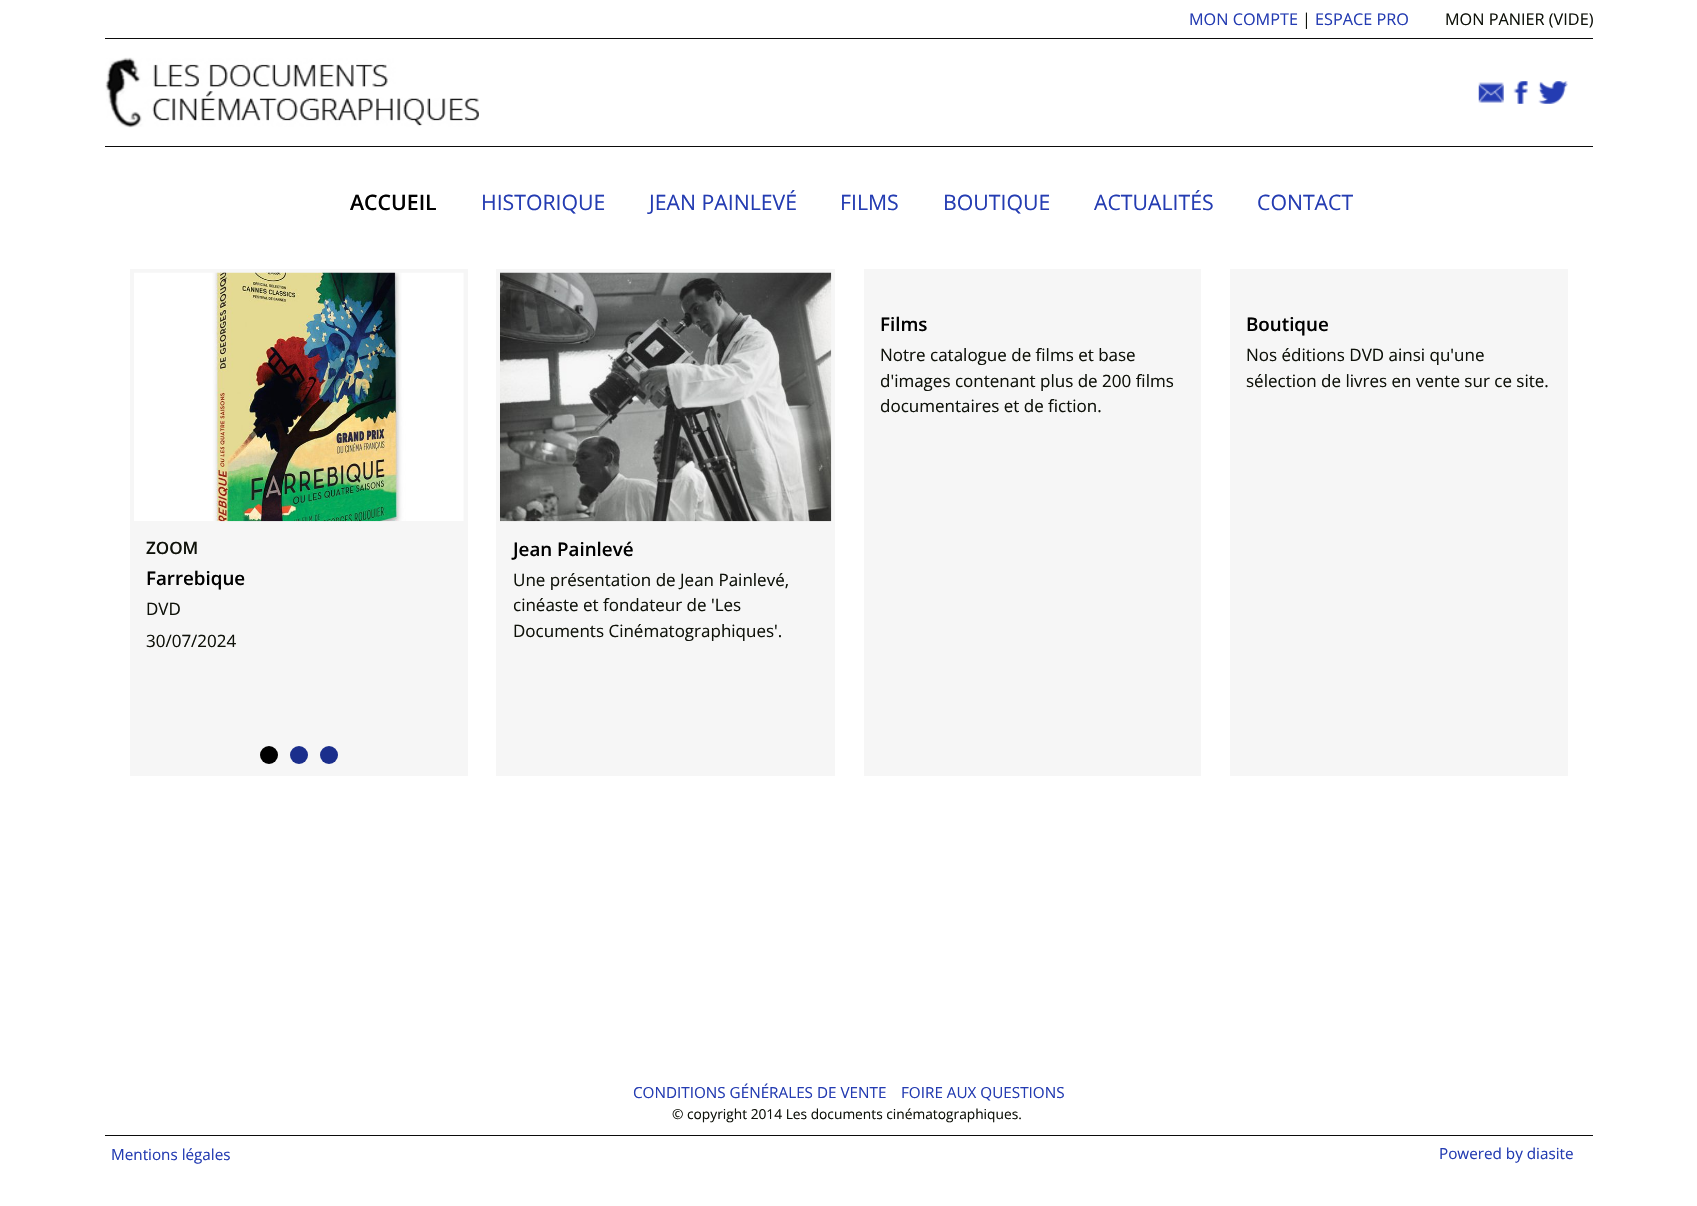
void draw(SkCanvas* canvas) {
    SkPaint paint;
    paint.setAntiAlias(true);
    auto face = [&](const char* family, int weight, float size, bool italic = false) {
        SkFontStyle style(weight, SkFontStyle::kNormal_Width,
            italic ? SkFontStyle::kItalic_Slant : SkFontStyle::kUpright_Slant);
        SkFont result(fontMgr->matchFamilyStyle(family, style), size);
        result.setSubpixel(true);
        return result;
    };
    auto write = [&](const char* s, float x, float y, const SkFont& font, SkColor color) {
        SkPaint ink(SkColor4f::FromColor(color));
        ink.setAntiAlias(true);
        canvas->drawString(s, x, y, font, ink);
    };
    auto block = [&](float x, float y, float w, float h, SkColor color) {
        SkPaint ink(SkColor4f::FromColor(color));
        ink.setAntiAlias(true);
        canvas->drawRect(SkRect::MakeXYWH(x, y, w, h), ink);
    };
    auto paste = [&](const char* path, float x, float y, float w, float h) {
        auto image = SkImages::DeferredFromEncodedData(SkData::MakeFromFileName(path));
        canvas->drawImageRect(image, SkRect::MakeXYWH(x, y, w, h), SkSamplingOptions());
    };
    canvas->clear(SK_ColorWHITE);
    block(105, 38, 1488, 1, SkColorSetRGB(11, 11, 11));
    block(105, 146, 1488, 1, SkColorSetRGB(11, 11, 11));
    auto kFont1 = face("Open Sans", 400, 16.25f);
    write("MON COMPTE", 1189, 25, kFont1, SkColorSetRGB(36, 60, 178));
    write("|", 1302, 25, kFont1, SkColorSetRGB(15, 18, 10));
    write("ESPACE PRO", 1315, 25, kFont1, SkColorSetRGB(36, 60, 178));
    write("MON PANIER (VIDE)", 1445, 25, kFont1, SkColorSetRGB(15, 18, 10));
    paste("pic1.png", 105, 57, 374, 71);
    paste("pic2.png", 1478, 82, 26, 21);
    paste("pic3.png", 1513, 81, 15, 23);
    paste("pic4.png", 1538, 81, 30, 23);
    auto kFont2 = face("Open Sans", 600, 21.25f);
    write("ACCUEIL", 350, 210, kFont2, SK_ColorBLACK);
    auto kFont3 = face("Open Sans", 400, 21.25f);
    write("HISTORIQUE", 481, 210, kFont3, SkColorSetRGB(36, 60, 178));
    write("JEAN PAINLEVÉ", 649, 210, kFont3, SkColorSetRGB(36, 60, 178));
    write("FILMS", 840, 210, kFont3, SkColorSetRGB(36, 60, 178));
    write("BOUTIQUE", 943, 210, kFont3, SkColorSetRGB(36, 60, 178));
    write("ACTUALITÉS", 1094, 210, kFont3, SkColorSetRGB(36, 60, 178));
    write("CONTACT", 1257, 210, kFont3, SkColorSetRGB(36, 60, 178));
    block(864, 269, 337, 507, SkColorSetRGB(246, 246, 246));
    auto kFont4 = face("Open Sans", 600, 18.75f);
    write("Films", 880, 331, kFont4, SK_ColorBLACK);
    auto kFont5 = face("Open Sans", 400, 17);
    write("Notre catalogue de films et base", 880, 361, kFont5, SkColorSetRGB(15, 18, 10));
    write("d'images contenant plus de 200 films", 880, 387, kFont5, SkColorSetRGB(15, 18, 10));
    write("documentaires et de fiction.", 880, 412, kFont5, SkColorSetRGB(15, 18, 10));
    block(1230, 269, 338, 507, SkColorSetRGB(246, 246, 246));
    write("Boutique", 1246, 331, kFont4, SK_ColorBLACK);
    write("Nos éditions DVD ainsi qu'une", 1246, 361, kFont5, SkColorSetRGB(15, 18, 10));
    write("sélection de livres en vente sur ce site.", 1246, 387, kFont5, SkColorSetRGB(15, 18, 10));
    block(130, 269, 338, 507, SkColorSetRGB(246, 246, 246));
    paste("pic5.png", 134, 272, 330, 250);
    auto kFont6 = face("Open Sans", 600, 17);
    write("ZOOM", 146, 554, kFont6, SkColorSetRGB(15, 18, 10));
    write("Farrebique", 146, 585, kFont4, SK_ColorBLACK);
    write("DVD", 146, 615, kFont5, SkColorSetRGB(15, 18, 10));
    write("30/07/2024", 146, 647, kFont5, SkColorSetRGB(15, 18, 10));
    paint.setColor(SK_ColorBLACK);
    canvas->drawCircle(269, 755, 9, paint);
    paint.setColor(SkColorSetRGB(27, 46, 140));
    canvas->drawCircle(299, 755, 9, paint);
    canvas->drawCircle(329, 755, 9, paint);
    block(496, 269, 339, 507, SkColorSetRGB(246, 246, 246));
    paste("pic6.png", 500, 272, 332, 250);
    write("Jean Painlevé", 513, 556, kFont4, SK_ColorBLACK);
    write("Une présentation de Jean Painlevé,", 513, 586, kFont5, SkColorSetRGB(15, 18, 10));
    write("cinéaste et fondateur de 'Les", 513, 611, kFont5, SkColorSetRGB(15, 18, 10));
    write("Documents Cinématographiques'.", 513, 637, kFont5, SkColorSetRGB(15, 18, 10));
    block(105, 1135, 1488, 1, SkColorSetRGB(11, 11, 11));
    auto kFont7 = face("Open Sans", 400, 15.25f);
    write("CONDITIONS GÉNÉRALES DE VENTE", 633, 1098, kFont7, SkColorSetRGB(36, 60, 178));
    write("FOIRE AUX QUESTIONS", 901, 1098, kFont7, SkColorSetRGB(36, 60, 178));
    auto kFont8 = face("Open Sans", 400, 13.75f);
    write("© copyright 2014 Les documents cinématographiques.", 672, 1119, kFont8, SkColorSetRGB(15, 18, 10));
    write("Mentions légales", 111, 1160, kFont7, SkColorSetRGB(36, 60, 178));
    write("Powered by diasite", 1439, 1159, kFont7, SkColorSetRGB(36, 60, 178));
}
